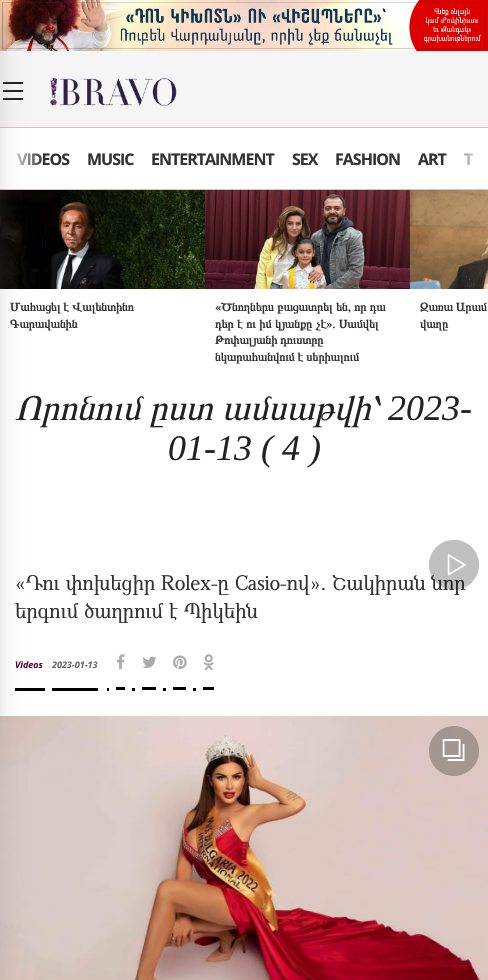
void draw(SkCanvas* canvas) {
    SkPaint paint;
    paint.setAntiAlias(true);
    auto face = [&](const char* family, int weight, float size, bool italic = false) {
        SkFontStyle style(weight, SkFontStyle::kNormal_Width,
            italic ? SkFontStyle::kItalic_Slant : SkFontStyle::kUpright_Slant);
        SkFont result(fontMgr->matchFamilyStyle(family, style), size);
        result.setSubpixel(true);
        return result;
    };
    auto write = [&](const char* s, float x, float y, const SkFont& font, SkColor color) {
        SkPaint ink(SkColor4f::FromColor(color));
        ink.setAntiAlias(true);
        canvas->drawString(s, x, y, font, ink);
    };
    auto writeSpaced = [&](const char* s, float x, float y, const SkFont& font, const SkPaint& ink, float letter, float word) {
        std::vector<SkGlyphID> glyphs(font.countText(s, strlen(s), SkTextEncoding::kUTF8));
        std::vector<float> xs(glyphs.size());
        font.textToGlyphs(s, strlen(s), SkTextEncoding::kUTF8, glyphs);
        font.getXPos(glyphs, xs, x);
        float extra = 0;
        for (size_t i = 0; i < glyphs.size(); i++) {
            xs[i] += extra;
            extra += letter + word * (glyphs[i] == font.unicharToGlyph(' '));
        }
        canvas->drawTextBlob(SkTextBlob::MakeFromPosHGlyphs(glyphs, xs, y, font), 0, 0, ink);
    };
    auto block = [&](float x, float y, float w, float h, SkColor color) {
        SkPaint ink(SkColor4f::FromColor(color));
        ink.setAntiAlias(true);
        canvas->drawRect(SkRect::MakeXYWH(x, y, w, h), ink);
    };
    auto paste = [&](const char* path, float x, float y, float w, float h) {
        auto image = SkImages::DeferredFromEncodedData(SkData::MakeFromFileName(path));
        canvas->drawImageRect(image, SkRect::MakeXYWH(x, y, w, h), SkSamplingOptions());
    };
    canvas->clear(SK_ColorWHITE);
    block(0, 51, 488, 76, SkColorSetRGB(245, 245, 245));
    paste("pic1.png", 0, 0, 488, 51);
    paste("pic2.png", 3, 82, 20, 18);
    block(0, 127, 488, 1, SkColorSetRGB(217, 191, 204));
    block(0, 189, 488, 1, SkColorSetRGB(217, 191, 204));
    auto kFont1 = face("Open Sans", 700, 16);
    paint.setColor(SkColorSetRGB(51, 51, 51));
    writeSpaced("VIDEOS", 17, 165, kFont1, paint, -1, 0);
    {
        const SkColor colors[] = {SkColorSetARGB(0, 255, 255, 255), SK_ColorWHITE};
        const float stops[] = {0, 0.85f};
        const SkPoint ends[] = {{44, 154}, {-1, 154}};
        paint.setShader(SkGradientShader::MakeLinear(ends, colors, stops, 2, SkTileMode::kClamp));
        paint.setAlpha(255);
    }
    canvas->drawRect(SkRect::MakeXYWH(17, 153, 25, 12), paint);
    paste("pic4.png", 0, 190, 205, 99);
    block(15, 688, 30, 3, SK_ColorBLACK);
    paste("pic12.png", 0, 716, 488, 264);
    paint.setShader(nullptr);
    paint.setColor(SkColorSetRGB(128, 128, 128));
    paint.setMaskFilter(SkMaskFilter::MakeBlur(kNormal_SkBlurStyle, 20));
    canvas->drawRect(SkRect::MakeXYWH(-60, 7, 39, 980), paint);
    paint.setMaskFilter(nullptr);
    paste("pic3.png", 50, 78, 127, 28);
    paint.setColor(SkColorSetRGB(51, 51, 51));
    writeSpaced("MUSIC", 87, 165, kFont1, paint, -1, 0);
    writeSpaced("ENTERTAINMENT", 151, 165, kFont1, paint, -1, 0);
    writeSpaced("SEX", 292, 165, kFont1, paint, -1, 0);
    writeSpaced("FASHION", 335, 165, kFont1, paint, -1, 0);
    writeSpaced("ART", 418, 165, kFont1, paint, -1, 0);
    writeSpaced("T", 464, 165, kFont1, paint, -1, 0);
    {
        const SkColor colors[] = {SkColorSetARGB(0, 255, 255, 255), SK_ColorWHITE};
        const float stops[] = {0, 0.85f};
        const SkPoint ends[] = {{444, 154}, {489, 154}};
        paint.setShader(SkGradientShader::MakeLinear(ends, colors, stops, 2, SkTileMode::kClamp));
        paint.setAlpha(255);
    }
    canvas->drawRect(SkRect::MakeXYWH(445, 153, 28, 12), paint);
    auto kFont2 = face("FreeSerif", 700, 12);
    write("Մահացել է Վալենտինո", 10, 311, kFont2, SkColorSetRGB(51, 51, 51));
    write("Գարավանին", 10, 328, kFont2, SkColorSetRGB(51, 51, 51));
    paste("pic5.png", 205, 190, 205, 99);
    paint.setShader(nullptr);
    paint.setColor(SkColorSetRGB(51, 51, 51));
    writeSpaced("«Ծնողներս բացատրել են, որ դա", 215, 311, kFont2, paint, 0, 0.5f);
    writeSpaced("դեր է ու իմ կյանքը չէ». Սամվել", 215, 328, kFont2, paint, 0, 0.5f);
    write("Թոփալյանի դուստրը", 215, 344, kFont2, SkColorSetRGB(51, 51, 51));
    write("նկարահանվում է սերիալում", 215, 361, kFont2, SkColorSetRGB(51, 51, 51));
    paste("pic6.png", 410, 190, 78, 99);
    write("Զառա Արամ", 420, 311, kFont2, SkColorSetRGB(51, 51, 51));
    write("վաղը", 420, 328, kFont2, SkColorSetRGB(51, 51, 51));
    auto kFont3 = face("FreeSerif", 400, 36, true);
    write("Որոնում ըստ ամսաթվի՝", 15, 420, kFont3, SkColorSetRGB(34, 34, 34));
    auto kFont4 = face("Liberation Serif", 400, 36, true);
    write("2023-", 388, 420, kFont4, SkColorSetRGB(34, 34, 34));
    write("01-13 ( 4 )", 168, 460, kFont4, SkColorSetRGB(34, 34, 34));
    auto kFont5 = face("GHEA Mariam", 400, 20);
    write("«Դու փոխեցիր Rolex-ը Casio-ով». Շակիրան նոր", 15, 590, kFont5, SkColorSetRGB(51, 51, 51));
    paste("pic7.png", 429, 540, 50, 50);
    write("երգում ծաղրում է Պիկեին", 15, 618, kFont5, SkColorSetRGB(51, 51, 51));
    block(52, 688, 46, 3, SK_ColorBLACK);
    block(107, 688, 2, 3, SK_ColorBLACK);
    block(116, 687, 9, 3, SK_ColorBLACK);
    block(132, 688, 3, 3, SK_ColorBLACK);
    block(142, 687, 14, 3, SK_ColorBLACK);
    block(163, 688, 3, 3, SK_ColorBLACK);
    block(173, 687, 13, 3, SK_ColorBLACK);
    block(193, 688, 3, 3, SK_ColorBLACK);
    block(203, 687, 11, 3, SK_ColorBLACK);
    auto kFont6 = face("Open Sans", 700, 9, true);
    write("Videos", 15, 668, kFont6, SkColorSetRGB(99, 1, 52));
    write("2023-01-13", 52, 668, kFont6, SkColorSetRGB(102, 102, 102));
    paste("pic8.png", 116, 654, 9, 16);
    paste("pic9.png", 142, 656, 15, 12);
    paste("pic10.png", 173, 655, 14, 15);
    paste("pic11.png", 204, 654, 10, 17);
    paste("pic13.png", 429, 726, 50, 50);
}
